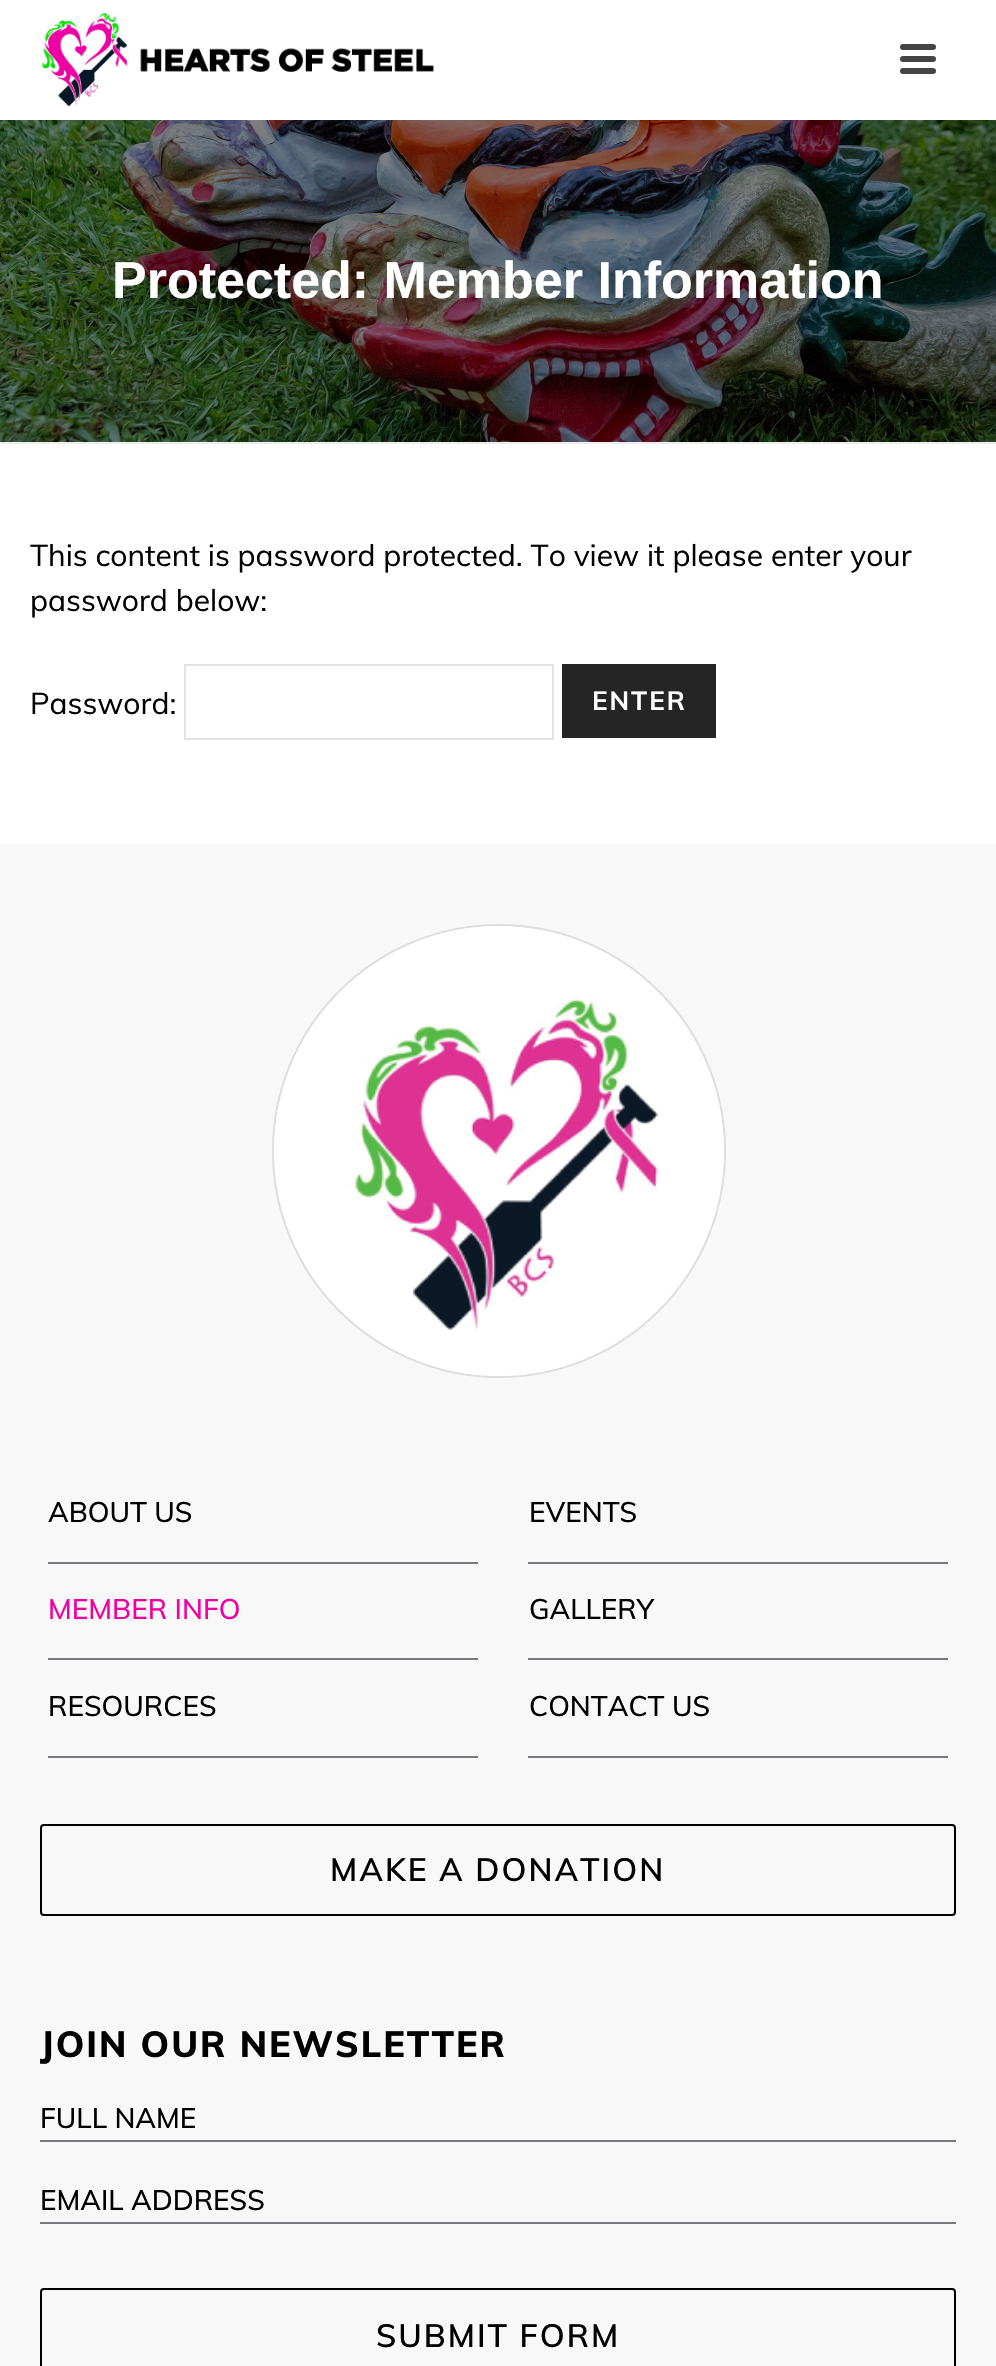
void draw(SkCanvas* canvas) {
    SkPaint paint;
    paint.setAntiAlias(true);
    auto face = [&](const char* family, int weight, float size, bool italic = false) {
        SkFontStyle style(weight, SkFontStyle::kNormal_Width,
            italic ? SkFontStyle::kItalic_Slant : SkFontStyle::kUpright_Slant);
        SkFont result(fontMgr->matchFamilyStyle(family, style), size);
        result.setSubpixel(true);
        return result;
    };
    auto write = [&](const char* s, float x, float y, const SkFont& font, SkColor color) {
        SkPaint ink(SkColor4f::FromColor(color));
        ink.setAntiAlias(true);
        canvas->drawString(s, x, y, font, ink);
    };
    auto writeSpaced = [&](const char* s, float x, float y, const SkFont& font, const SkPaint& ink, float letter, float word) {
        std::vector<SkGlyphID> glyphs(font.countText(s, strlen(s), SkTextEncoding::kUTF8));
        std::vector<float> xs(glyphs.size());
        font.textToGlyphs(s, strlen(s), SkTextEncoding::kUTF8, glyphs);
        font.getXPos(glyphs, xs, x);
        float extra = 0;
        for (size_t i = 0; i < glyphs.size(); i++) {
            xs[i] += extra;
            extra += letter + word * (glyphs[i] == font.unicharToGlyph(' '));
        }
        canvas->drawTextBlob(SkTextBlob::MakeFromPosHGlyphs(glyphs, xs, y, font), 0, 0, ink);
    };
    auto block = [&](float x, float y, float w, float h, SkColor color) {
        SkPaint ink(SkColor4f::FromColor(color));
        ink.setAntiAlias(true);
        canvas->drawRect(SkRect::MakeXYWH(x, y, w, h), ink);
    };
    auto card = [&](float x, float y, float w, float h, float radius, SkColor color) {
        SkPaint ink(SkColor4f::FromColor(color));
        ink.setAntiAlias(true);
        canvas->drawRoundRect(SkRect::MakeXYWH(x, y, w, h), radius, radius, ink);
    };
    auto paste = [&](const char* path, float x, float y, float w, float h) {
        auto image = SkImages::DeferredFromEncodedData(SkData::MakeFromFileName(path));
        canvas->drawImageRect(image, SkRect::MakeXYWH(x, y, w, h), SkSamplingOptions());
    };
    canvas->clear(SK_ColorWHITE);
    paste("pic1.png", 0, 120, 996, 322);
    block(0, 442, 996, 2, SkColorSetRGB(237, 237, 237));
    paste("pic2.png", 41, 11, 393, 96);
    card(900, 44, 36, 6, 3, SkColorSetRGB(68, 68, 68));
    card(900, 56, 36, 6, 3, SkColorSetRGB(68, 68, 68));
    card(900, 68, 36, 6, 3, SkColorSetRGB(68, 68, 68));
    auto kFont1 = face("Liberation Sans", 700, 52);
    write("Protected: Member Information", 112, 298, kFont1, SK_ColorWHITE);
    auto kFont2 = face("Muli", 400, 30);
    write("This content is password protected. To view it please enter your", 30, 566, kFont2, SK_ColorBLACK);
    write("password below:", 30, 611, kFont2, SK_ColorBLACK);
    write("Password:", 30, 714, kFont2, SK_ColorBLACK);
    paint.setStyle(SkPaint::kStroke_Style);
    paint.setStrokeWidth(2);
    paint.setColor(SkColorSetRGB(227, 227, 227));
    canvas->drawRect(SkRect::MakeXYWH(185, 665, 368, 74), paint);
    block(562, 664, 154, 74, SkColorSetRGB(37, 37, 37));
    auto kFont3 = face("Muli", 700, 26);
    paint.setStyle(SkPaint::kFill_Style);
    paint.setColor(SK_ColorWHITE);
    writeSpaced("ENTER", 592, 710, kFont3, paint, 2, 0);
    block(0, 844, 996, 1522, SkColorSetRGB(248, 248, 248));
    paint.setStyle(SkPaint::kStroke_Style);
    paint.setColor(SkColorSetRGB(221, 221, 221));
    canvas->drawCircle(499, 1151, 226, paint);
    paste("pic3.png", 274, 926, 450, 450);
    block(48, 1562, 430, 2, SkColorSetRGB(120, 121, 124));
    auto kFont4 = face("Muli", 500, 28);
    write("ABOUT US", 48, 1522, kFont4, SK_ColorBLACK);
    block(528, 1562, 420, 2, SkColorSetRGB(120, 121, 124));
    write("EVENTS", 529, 1522, kFont4, SK_ColorBLACK);
    block(48, 1658, 430, 2, SkColorSetRGB(120, 121, 124));
    write("MEMBER INFO", 48, 1619, kFont4, SkColorSetRGB(240, 0, 163));
    block(528, 1658, 420, 2, SkColorSetRGB(120, 121, 124));
    write("GALLERY", 529, 1619, kFont4, SK_ColorBLACK);
    block(48, 1756, 430, 2, SkColorSetRGB(120, 121, 124));
    write("RESOURCES", 48, 1716, kFont4, SK_ColorBLACK);
    block(528, 1756, 420, 2, SkColorSetRGB(120, 121, 124));
    write("CONTACT US", 529, 1716, kFont4, SK_ColorBLACK);
    paint.setColor(SK_ColorBLACK);
    canvas->drawRoundRect(SkRect::MakeXYWH(41, 1825, 914, 90), 3, 3, paint);
    auto kFont5 = face("Muli", 600, 32);
    paint.setStyle(SkPaint::kFill_Style);
    writeSpaced("MAKE A DONATION", 330, 1881, kFont5, paint, 2, 0);
    auto kFont6 = face("Muli", 800, 36);
    writeSpaced("JOIN OUR NEWSLETTER", 40, 2057, kFont6, paint, 2, 0);
    block(40, 2140, 916, 2, SkColorSetRGB(120, 121, 124));
    write("FULL NAME", 40, 2128, kFont4, SK_ColorBLACK);
    block(40, 2222, 916, 2, SkColorSetRGB(120, 121, 124));
    write("EMAIL ADDRESS", 40, 2210, kFont4, SK_ColorBLACK);
    paint.setStyle(SkPaint::kStroke_Style);
    canvas->drawRoundRect(SkRect::MakeXYWH(41, 2289, 914, 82), 3, 3, paint);
    paint.setStyle(SkPaint::kFill_Style);
    writeSpaced("SUBMIT FORM", 376, 2347, kFont5, paint, 2, 0);
}
